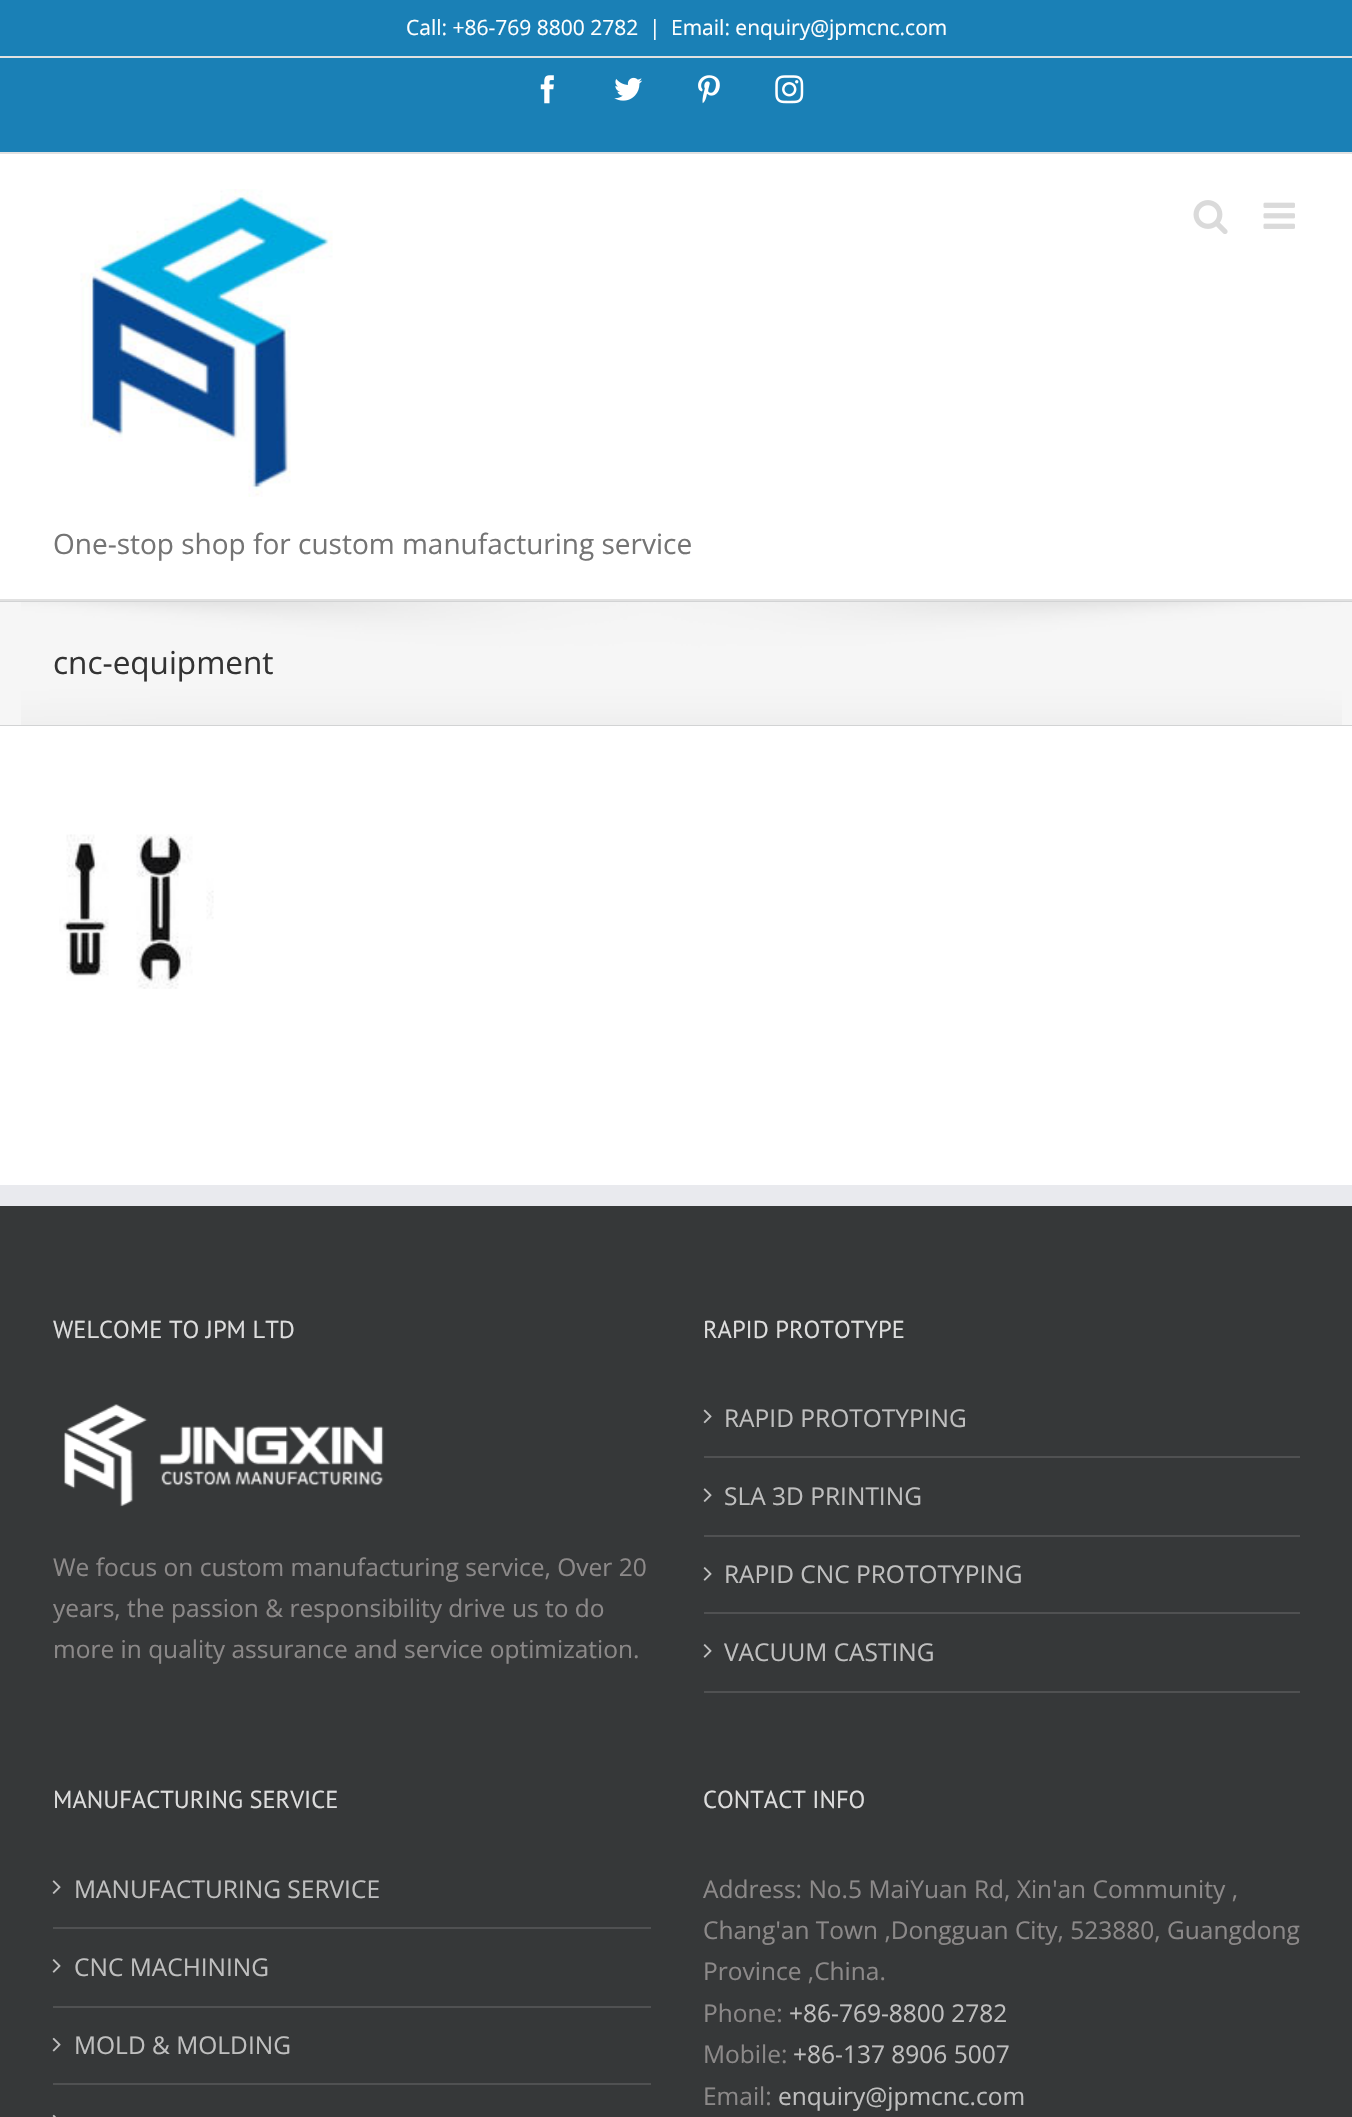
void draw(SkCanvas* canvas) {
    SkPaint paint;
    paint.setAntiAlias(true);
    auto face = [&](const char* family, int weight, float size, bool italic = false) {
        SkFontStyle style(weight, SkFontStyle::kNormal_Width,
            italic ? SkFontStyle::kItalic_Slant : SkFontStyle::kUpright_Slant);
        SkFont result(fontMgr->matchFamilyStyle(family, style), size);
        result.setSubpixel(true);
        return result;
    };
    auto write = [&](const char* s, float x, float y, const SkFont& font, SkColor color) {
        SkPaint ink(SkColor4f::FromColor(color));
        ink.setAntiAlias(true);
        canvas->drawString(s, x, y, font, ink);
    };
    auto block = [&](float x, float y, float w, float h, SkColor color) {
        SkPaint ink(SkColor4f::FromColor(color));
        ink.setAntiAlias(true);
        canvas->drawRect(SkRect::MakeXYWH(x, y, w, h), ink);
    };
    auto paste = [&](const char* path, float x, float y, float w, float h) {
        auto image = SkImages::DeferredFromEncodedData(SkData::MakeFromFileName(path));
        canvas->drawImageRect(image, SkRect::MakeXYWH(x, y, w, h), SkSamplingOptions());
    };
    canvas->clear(SK_ColorWHITE);
    block(0, 0, 1352, 152, SkColorSetRGB(26, 128, 182));
    block(0, 152, 1352, 2, SkColorSetRGB(225, 225, 225));
    block(0, 56, 1352, 2, SkColorSetRGB(225, 225, 225));
    auto kFont1 = face("Open Sans", 400, 21);
    write("Call: +86-769 8800 2782", 406, 35, kFont1, SK_ColorWHITE);
    write("|", 649, 35, kFont1, SK_ColorWHITE);
    write("Email: enquiry@jpmcnc.com", 671, 35, kFont1, SK_ColorWHITE);
    paste("pic1.png", 540, 75, 14, 29);
    paste("pic2.png", 614, 77, 29, 24);
    paste("pic3.png", 698, 75, 22, 29);
    paste("pic4.png", 775, 75, 29, 29);
    block(0, 599, 1352, 2, SkColorSetRGB(225, 225, 225));
    paste("pic5.png", 1193, 200, 35, 34);
    paste("pic6.png", 1263, 202, 32, 27);
    paste("pic7.png", 80, 189, 253, 308);
    auto kFont2 = face("Open Sans", 400, 28);
    write("One-stop shop for custom manufacturing service", 53, 554, kFont2, SkColorSetRGB(116, 116, 116));
    block(0, 602, 1352, 123, SkColorSetRGB(246, 246, 246));
    paste("pic8.png", 21, 602, 1321, 123);
    block(0, 601, 1352, 1, SkColorSetRGB(210, 211, 212));
    block(0, 725, 1352, 1, SkColorSetRGB(210, 211, 212));
    auto kFont3 = face("Open Sans", 400, 31.5f);
    write("cnc-equipment", 53, 674, kFont3, SkColorSetRGB(51, 51, 51));
    paste("pic9.png", 59, 834, 155, 155);
    block(0, 1206, 1352, 911, SkColorSetRGB(54, 56, 57));
    block(0, 1185, 1352, 21, SkColorSetRGB(233, 234, 238));
    auto kFont4 = face("PT Sans", 400, 24.5f);
    write("WELCOME TO JPM LTD", 53, 1338, kFont4, SkColorSetRGB(221, 221, 221));
    paste("pic10.png", 64, 1404, 320, 103);
    auto kFont5 = face("Open Sans", 400, 24.5f);
    write("We focus on custom manufacturing service, Over 20", 53, 1576, kFont5, SkColorSetRGB(140, 137, 137));
    write("years, the passion & responsibility drive us to do", 53, 1617, kFont5, SkColorSetRGB(140, 137, 137));
    write("more in quality assurance and service optimization.", 53, 1658, kFont5, SkColorSetRGB(140, 137, 137));
    write("RAPID PROTOTYPE", 703, 1338, kFont4, SkColorSetRGB(221, 221, 221));
    block(704, 1456, 596, 2, SkColorSetRGB(80, 81, 82));
    paste("pic11.png", 703, 1409, 9, 15);
    write("RAPID PROTOTYPING", 724, 1427, kFont5, SkColorSetRGB(191, 191, 191));
    block(704, 1535, 596, 2, SkColorSetRGB(80, 81, 82));
    paste("pic12.png", 703, 1488, 9, 14);
    write("SLA 3D PRINTING", 724, 1505, kFont5, SkColorSetRGB(191, 191, 191));
    block(704, 1612, 596, 2, SkColorSetRGB(80, 81, 82));
    paste("pic13.png", 703, 1567, 9, 14);
    write("RAPID CNC PROTOTYPING", 724, 1583, kFont5, SkColorSetRGB(191, 191, 191));
    block(704, 1691, 596, 2, SkColorSetRGB(80, 81, 82));
    paste("pic13.png", 703, 1644, 9, 14);
    write("VACUUM CASTING", 724, 1661, kFont5, SkColorSetRGB(191, 191, 191));
    write("MANUFACTURING SERVICE", 53, 1808, kFont4, SkColorSetRGB(221, 221, 221));
    block(53, 1927, 598, 2, SkColorSetRGB(80, 81, 82));
    paste("pic12.png", 52, 1880, 9, 14);
    write("MANUFACTURING SERVICE", 74, 1898, kFont5, SkColorSetRGB(191, 191, 191));
    block(53, 2006, 598, 2, SkColorSetRGB(80, 81, 82));
    paste("pic13.png", 52, 1959, 9, 14);
    write("CNC MACHINING", 74, 1976, kFont5, SkColorSetRGB(191, 191, 191));
    block(53, 2083, 598, 2, SkColorSetRGB(80, 81, 82));
    paste("pic14.png", 52, 2037, 9, 15);
    write("MOLD & MOLDING", 74, 2054, kFont5, SkColorSetRGB(191, 191, 191));
    paste("pic15.png", 52, 2114, 4, 3);
    write("CONTACT INFO", 703, 1808, kFont4, SkColorSetRGB(221, 221, 221));
    write("Address: No.5 MaiYuan Rd, Xin'an Community ,", 703, 1898, kFont5, SkColorSetRGB(140, 137, 137));
    write("Chang'an Town ,Dongguan City, 523880, Guangdong", 703, 1939, kFont5, SkColorSetRGB(140, 137, 137));
    write("Province ,China.", 703, 1980, kFont5, SkColorSetRGB(140, 137, 137));
    write("Phone:", 703, 2022, kFont5, SkColorSetRGB(140, 137, 137));
    write("+86-769-8800 2782", 789, 2022, kFont5, SkColorSetRGB(191, 191, 191));
    write("Mobile:", 703, 2063, kFont5, SkColorSetRGB(140, 137, 137));
    write("+86-137 8906 5007", 793, 2063, kFont5, SkColorSetRGB(191, 191, 191));
    write("Email:", 703, 2105, kFont5, SkColorSetRGB(140, 137, 137));
    write("enquiry@jpmcnc.com", 778, 2105, kFont5, SkColorSetRGB(191, 191, 191));
}
